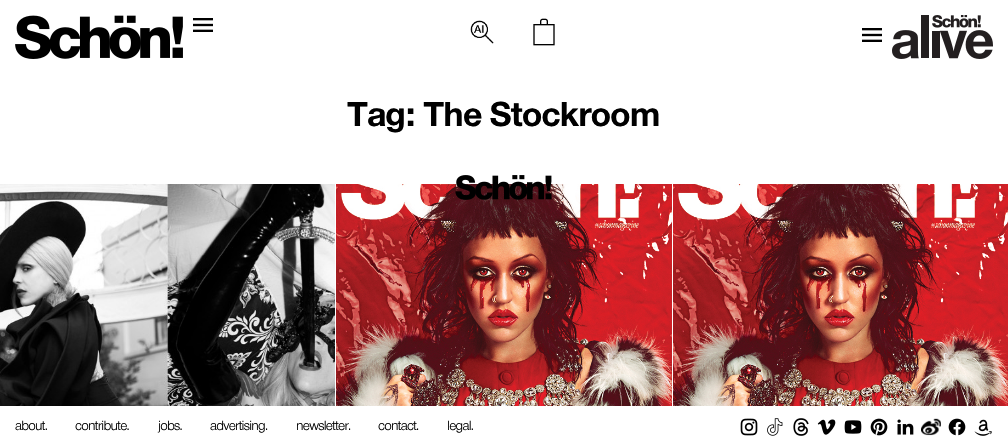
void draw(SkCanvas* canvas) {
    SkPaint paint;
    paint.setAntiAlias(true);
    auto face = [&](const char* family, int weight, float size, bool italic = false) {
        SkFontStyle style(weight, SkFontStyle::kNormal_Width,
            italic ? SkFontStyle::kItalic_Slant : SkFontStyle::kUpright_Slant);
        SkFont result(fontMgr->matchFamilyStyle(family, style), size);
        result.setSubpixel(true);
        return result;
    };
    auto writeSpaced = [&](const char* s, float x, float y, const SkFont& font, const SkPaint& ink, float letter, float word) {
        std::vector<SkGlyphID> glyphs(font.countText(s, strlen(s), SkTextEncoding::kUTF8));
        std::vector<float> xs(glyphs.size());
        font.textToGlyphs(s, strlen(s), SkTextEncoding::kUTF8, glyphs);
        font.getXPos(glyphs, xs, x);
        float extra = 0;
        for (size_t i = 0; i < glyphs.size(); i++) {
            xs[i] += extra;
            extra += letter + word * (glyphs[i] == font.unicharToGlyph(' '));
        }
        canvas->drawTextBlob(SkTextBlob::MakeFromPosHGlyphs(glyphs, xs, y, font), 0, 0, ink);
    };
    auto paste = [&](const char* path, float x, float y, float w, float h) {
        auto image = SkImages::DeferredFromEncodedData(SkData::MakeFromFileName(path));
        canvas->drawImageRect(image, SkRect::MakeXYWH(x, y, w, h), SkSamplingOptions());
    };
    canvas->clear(SK_ColorWHITE);
    paste("pic1.png", 15, 15, 168, 44);
    paste("pic2.png", 193, 18, 20, 14);
    paste("pic3.png", 470, 20, 24, 24);
    paste("pic4.png", 533, 18, 22, 28);
    paste("pic2.png", 862, 28, 20, 14);
    paste("pic5.png", 892, 15, 101, 44);
    auto kFont1 = face("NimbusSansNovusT", 700, 36);
    paint.setColor(SK_ColorBLACK);
    writeSpaced("Tag: The Stockroom", 347, 126, kFont1, paint, -0.75f, 0);
    paste("pic6.png", 0, 184, 335, 222);
    paste("pic7.png", 336, 184, 336, 222);
    paste("pic8.png", 673, 184, 335, 222);
    paste("pic9.png", 455, 175, 97, 25);
    auto kFont2 = face("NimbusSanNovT", 400, 14);
    writeSpaced("about.", 15, 430, kFont2, paint, -0.75f, 0);
    writeSpaced("contribute.", 75, 430, kFont2, paint, -0.75f, 0);
    writeSpaced("jobs.", 158, 430, kFont2, paint, -0.75f, 0);
    writeSpaced("advertising.", 210, 430, kFont2, paint, -0.75f, 0);
    writeSpaced("newsletter.", 296, 430, kFont2, paint, -0.75f, 0);
    writeSpaced("contact.", 378, 430, kFont2, paint, -0.75f, 0);
    writeSpaced("legal.", 447, 430, kFont2, paint, -0.75f, 0);
    paste("pic10.png", 740, 418, 18, 18);
    paste("pic11.png", 767, 418, 16, 18);
    paste("pic12.png", 793, 418, 16, 18);
    paste("pic13.png", 817, 419, 19, 16);
    paste("pic14.png", 844, 420, 18, 14);
    paste("pic15.png", 870, 418, 18, 18);
    paste("pic16.png", 897, 419, 17, 16);
    paste("pic17.png", 921, 418, 20, 18);
    paste("pic18.png", 948, 418, 18, 18);
    paste("pic19.png", 974, 419, 18, 17);
}
